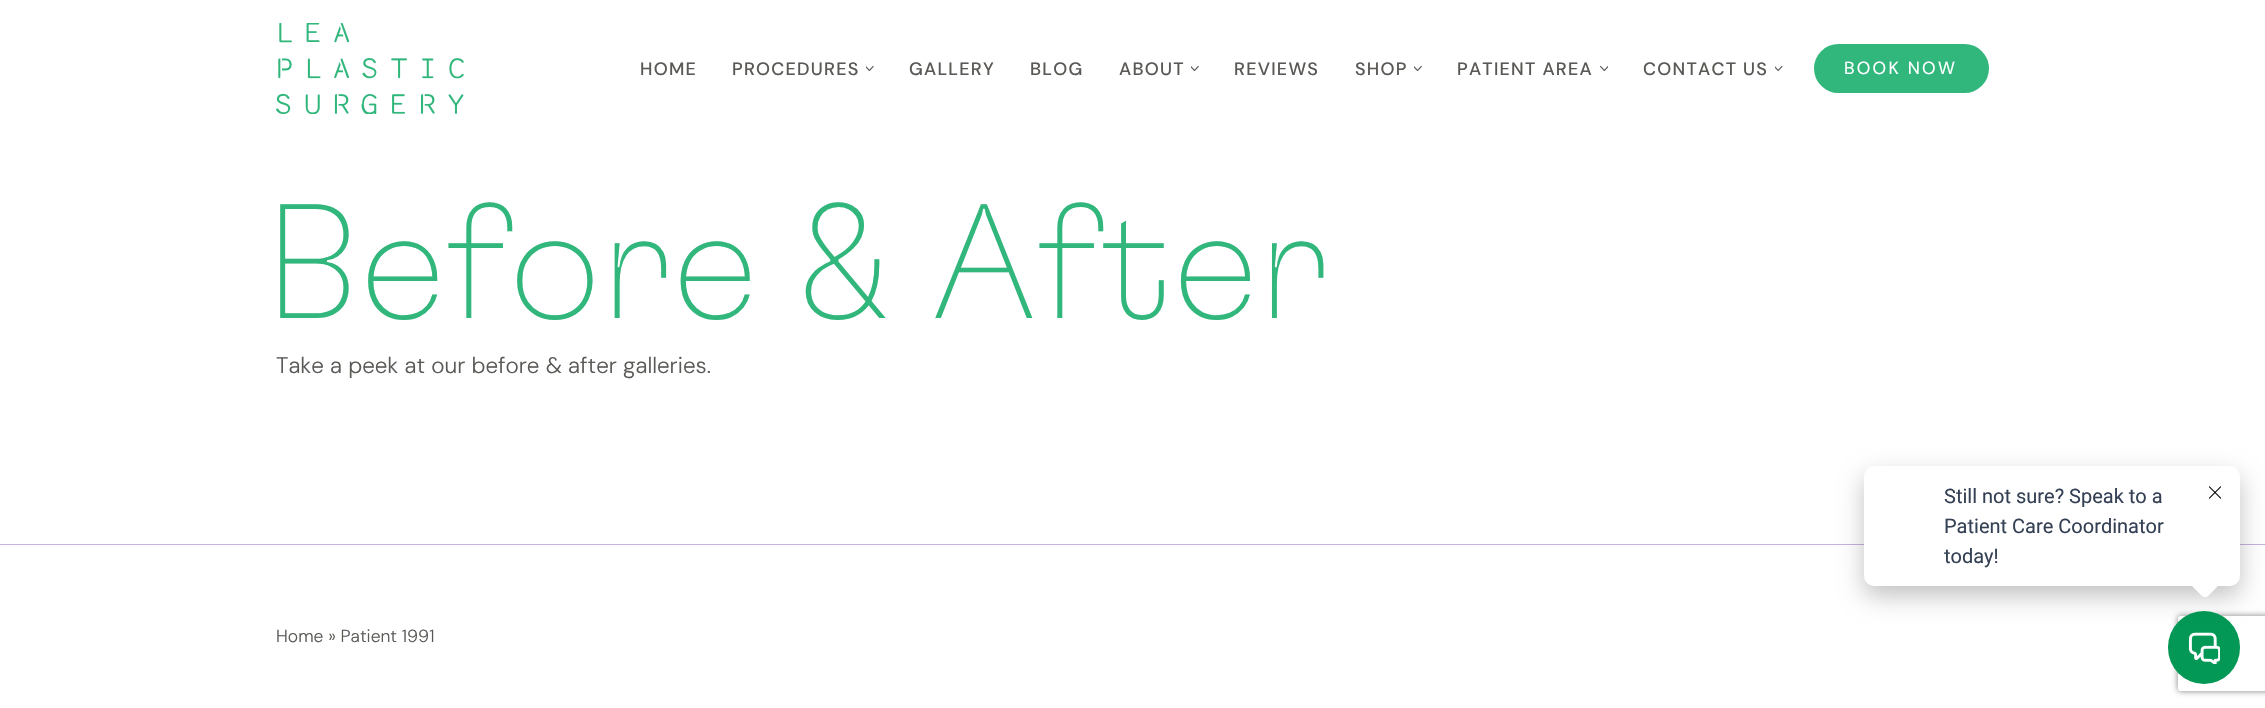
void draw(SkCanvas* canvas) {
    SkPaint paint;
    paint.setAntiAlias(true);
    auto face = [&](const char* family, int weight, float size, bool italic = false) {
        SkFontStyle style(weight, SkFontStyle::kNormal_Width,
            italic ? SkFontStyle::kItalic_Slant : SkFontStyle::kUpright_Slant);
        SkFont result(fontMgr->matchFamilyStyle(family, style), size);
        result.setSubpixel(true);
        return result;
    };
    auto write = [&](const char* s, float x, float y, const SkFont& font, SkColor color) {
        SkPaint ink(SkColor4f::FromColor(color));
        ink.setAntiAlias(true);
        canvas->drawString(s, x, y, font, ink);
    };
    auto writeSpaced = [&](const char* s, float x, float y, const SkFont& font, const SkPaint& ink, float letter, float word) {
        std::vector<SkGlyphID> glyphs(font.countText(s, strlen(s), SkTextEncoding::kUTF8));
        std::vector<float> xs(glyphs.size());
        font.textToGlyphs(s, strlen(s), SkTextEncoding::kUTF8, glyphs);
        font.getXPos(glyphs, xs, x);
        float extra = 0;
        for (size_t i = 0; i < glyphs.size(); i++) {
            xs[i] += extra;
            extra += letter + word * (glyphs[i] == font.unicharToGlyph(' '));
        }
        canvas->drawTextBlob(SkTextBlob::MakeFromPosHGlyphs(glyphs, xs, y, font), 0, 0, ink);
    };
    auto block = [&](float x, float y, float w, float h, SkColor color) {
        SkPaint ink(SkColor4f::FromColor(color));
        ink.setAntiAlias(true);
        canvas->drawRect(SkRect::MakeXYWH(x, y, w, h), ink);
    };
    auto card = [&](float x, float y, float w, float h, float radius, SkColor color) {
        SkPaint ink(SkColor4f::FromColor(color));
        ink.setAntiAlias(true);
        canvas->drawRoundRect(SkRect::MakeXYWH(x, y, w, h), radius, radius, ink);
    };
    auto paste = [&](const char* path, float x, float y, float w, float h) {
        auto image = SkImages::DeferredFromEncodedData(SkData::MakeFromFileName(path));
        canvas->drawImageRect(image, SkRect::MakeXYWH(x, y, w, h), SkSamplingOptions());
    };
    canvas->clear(SK_ColorWHITE);
    paste("pic1.png", 276, 23, 188, 91);
    auto kFont1 = face("DM Sans", 500, 18);
    paint.setColor(SkColorSetRGB(91, 89, 86));
    writeSpaced("HOME", 640, 75, kFont1, paint, 1.25f, 0);
    writeSpaced("PROCEDURES", 732, 75, kFont1, paint, 1.25f, 0);
    paste("pic2.png", 866, 65, 8, 7);
    writeSpaced("GALLERY", 909, 75, kFont1, paint, 1.25f, 0);
    writeSpaced("BLOG", 1030, 75, kFont1, paint, 1.25f, 0);
    writeSpaced("ABOUT", 1119, 75, kFont1, paint, 1.25f, 0);
    paste("pic3.png", 1191, 65, 8, 7);
    writeSpaced("REVIEWS", 1234, 75, kFont1, paint, 1.25f, 0);
    writeSpaced("SHOP", 1355, 75, kFont1, paint, 1.25f, 0);
    paste("pic4.png", 1414, 65, 8, 7);
    writeSpaced("PATIENT AREA", 1457, 75, kFont1, paint, 1.25f, 0);
    paste("pic5.png", 1600, 65, 8, 7);
    writeSpaced("CONTACT US", 1643, 75, kFont1, paint, 1.25f, 0);
    paste("pic6.png", 1775, 66, 8, 6);
    card(1814, 44, 175, 49, 24.5f, SkColorSetRGB(49, 182, 124));
    auto kFont2 = face("DM Sans", 400, 17.5f);
    paint.setColor(SK_ColorWHITE);
    writeSpaced("BOOK NOW", 1844, 74, kFont2, paint, 2.25f, 0);
    block(0, 544, 2265, 1, SkColorSetRGB(197, 177, 226));
    auto kFont3 = face("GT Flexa", 200, 162.5f);
    write("Before & After", 264, 318, kFont3, SkColorSetRGB(49, 182, 124));
    auto kFont4 = face("DM Sans", 300, 22.5f);
    write("Take a peek at our before & after galleries.", 276, 373, kFont4, SkColorSetRGB(91, 89, 86));
    auto kFont5 = face("DM Sans", 300, 17.5f);
    write("Home » Patient 1991", 276, 642, kFont5, SkColorSetRGB(91, 89, 86));
    canvas->save();
    canvas->clipPath(SkPathBuilder(SkPathFillType::kEvenOdd).moveTo(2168, 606).lineTo(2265, 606).lineTo(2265, 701).lineTo(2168, 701).close().moveTo(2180.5f, 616).lineTo(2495.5f, 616).cubicTo(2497, 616, 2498, 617, 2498, 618.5f).lineTo(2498, 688.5f).cubicTo(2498, 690, 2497, 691, 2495.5f, 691).lineTo(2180.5f, 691).cubicTo(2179, 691, 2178, 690, 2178, 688.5f).lineTo(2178, 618.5f).cubicTo(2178, 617, 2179, 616, 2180.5f, 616).close().detach(), true);
    paint.setColor(SkColorSetRGB(128, 128, 128));
    paint.setMaskFilter(SkMaskFilter::MakeBlur(kNormal_SkBlurStyle, 3));
    canvas->drawRoundRect(SkRect::MakeXYWH(2178, 616, 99, 75), 2.5f, 2.5f, paint);
    paint.setMaskFilter(nullptr);
    canvas->restore();
    card(2168, 611, 72, 73, 36, SkColorSetRGB(3, 152, 85));
    paste("pic8.png", 2188, 632, 32, 32);
    paint.setColor(SkColorSetARGB(61, 0, 0, 0));
    paint.setMaskFilter(SkMaskFilter::MakeBlur(kNormal_SkBlurStyle, 12.5f));
    canvas->drawRoundRect(SkRect::MakeXYWH(1864, 476, 376, 120), 10, 10, paint);
    paint.setMaskFilter(nullptr);
    card(1864, 466, 376, 120, 10, SK_ColorWHITE);
    auto kFont6 = face("Roboto", 400, 20);
    write("Still not sure? Speak to a", 1944, 503, kFont6, SkColorSetRGB(52, 64, 84));
    write("Patient Care Coordinator", 1944, 533, kFont6, SkColorSetRGB(52, 64, 84));
    write("today!", 1944, 563, kFont6, SkColorSetRGB(52, 64, 84));
    paint.setColor(SK_ColorWHITE);
    canvas->drawPath(SkPathBuilder().moveTo(2208.5f, 567).lineTo(2219, 577.5f).cubicTo(2221, 579.5f, 2221, 583, 2219, 585).lineTo(2208.5f, 595.5f).cubicTo(2206.5f, 597.5f, 2203.5f, 597.5f, 2201.5f, 595.5f).lineTo(2191, 585).cubicTo(2189, 583, 2189, 579.5f, 2191, 577.5f).lineTo(2201.5f, 567).cubicTo(2203.5f, 565, 2206.5f, 565, 2208.5f, 567).close().detach(), paint);
    paste("pic7.png", 2209, 486, 12, 13);
}
